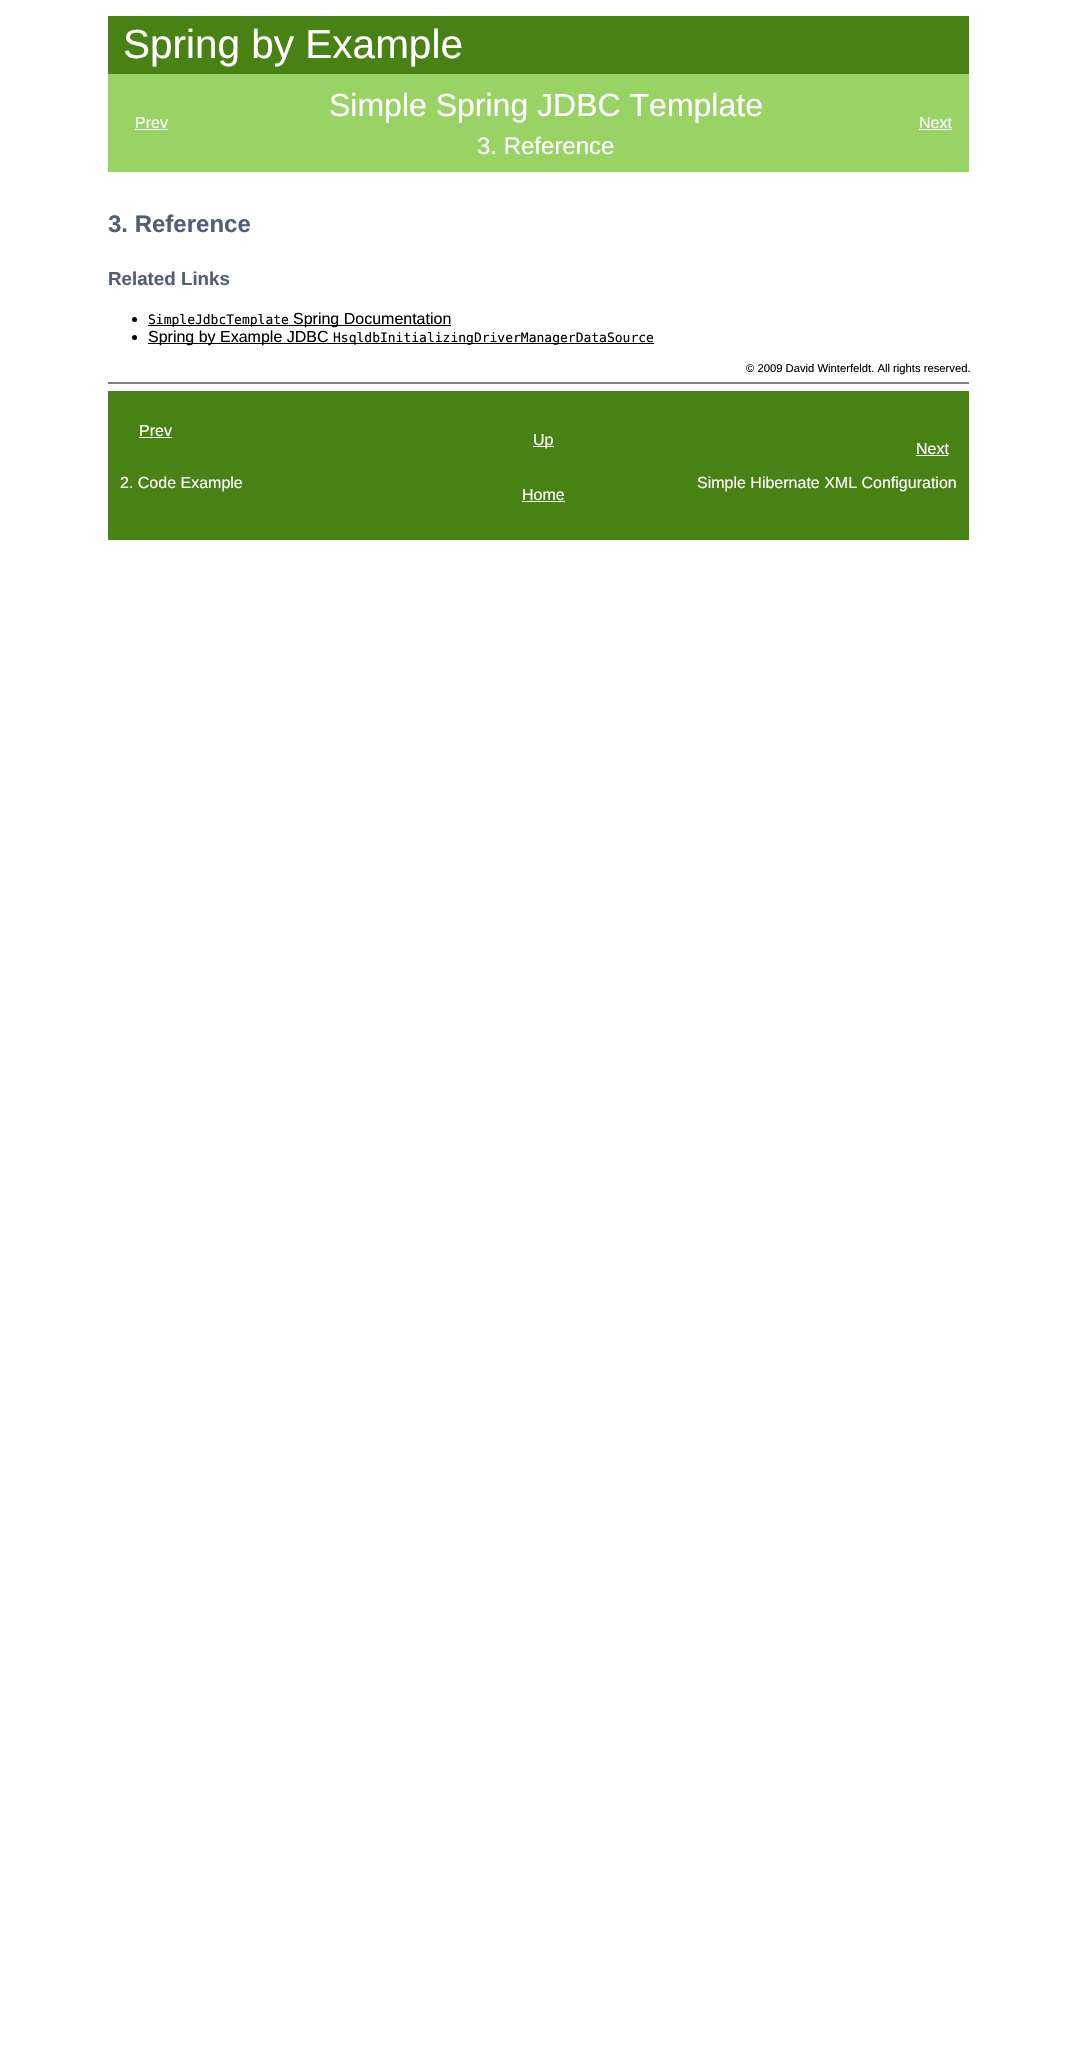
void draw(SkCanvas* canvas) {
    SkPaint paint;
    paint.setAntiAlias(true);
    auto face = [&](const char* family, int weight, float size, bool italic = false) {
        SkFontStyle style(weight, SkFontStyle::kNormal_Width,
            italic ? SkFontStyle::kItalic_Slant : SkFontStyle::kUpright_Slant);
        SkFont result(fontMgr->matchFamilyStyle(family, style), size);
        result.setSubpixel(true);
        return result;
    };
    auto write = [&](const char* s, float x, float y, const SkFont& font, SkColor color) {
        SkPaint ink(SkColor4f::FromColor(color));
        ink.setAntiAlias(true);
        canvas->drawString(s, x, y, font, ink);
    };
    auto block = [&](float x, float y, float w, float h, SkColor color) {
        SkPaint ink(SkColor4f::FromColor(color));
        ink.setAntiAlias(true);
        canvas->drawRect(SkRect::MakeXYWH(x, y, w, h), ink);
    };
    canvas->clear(SK_ColorWHITE);
    block(108, 16, 861, 58, SkColorSetRGB(72, 130, 20));
    auto kFont1 = face("Liberation Sans", 400, 40.5f);
    write("Spring by Example", 123, 58, kFont1, SK_ColorWHITE);
    block(108, 74, 861, 98, SkColorSetRGB(153, 211, 101));
    auto kFont2 = face("Liberation Sans", 400, 16);
    write("Prev", 135, 128, kFont2, SK_ColorWHITE);
    block(135, 129, 33, 1, SK_ColorWHITE);
    auto kFont3 = face("Liberation Sans", 400, 32);
    write("Simple Spring JDBC Template", 329, 116, kFont3, SK_ColorWHITE);
    auto kFont4 = face("Liberation Sans", 400, 24);
    write("3. Reference", 477, 154, kFont4, SK_ColorWHITE);
    write("Next", 919, 128, kFont2, SK_ColorWHITE);
    block(919, 129, 33, 1, SK_ColorWHITE);
    auto kFont5 = face("Liberation Sans", 700, 24);
    write("3. Reference", 108, 232, kFont5, SkColorSetRGB(82, 93, 118));
    auto kFont6 = face("Liberation Sans", 700, 18.75f);
    write("Related Links", 108, 285, kFont6, SkColorSetRGB(82, 93, 118));
    paint.setColor(SK_ColorBLACK);
    canvas->drawCircle(134.5f, 319.5f, 2.5f, paint);
    block(148, 325, 303, 1, SK_ColorBLACK);
    auto kFont7 = face("DejaVu Sans Mono", 400, 13);
    write("SimpleJdbcTemplate", 148, 324, kFont7, SK_ColorBLACK);
    write("Spring Documentation", 293, 324, kFont2, SK_ColorBLACK);
    canvas->drawCircle(134.5f, 337.5f, 2.5f, paint);
    block(148, 343, 506, 1, SK_ColorBLACK);
    write("Spring by Example JDBC", 148, 342, kFont2, SK_ColorBLACK);
    write("HsqldbInitializingDriverManagerDataSource", 333, 342, kFont7, SK_ColorBLACK);
    auto kFont8 = face("Liberation Sans", 400, 11.25f);
    write("© 2009 David Winterfeldt. All rights reserved.", 746, 372, kFont8, SK_ColorBLACK);
    block(108, 382, 861, 2, SkColorSetRGB(128, 128, 128));
    block(108, 391, 861, 149, SkColorSetRGB(72, 130, 20));
    write("Prev", 139, 436, kFont2, SK_ColorWHITE);
    block(139, 437, 33, 1, SK_ColorWHITE);
    block(533, 446, 21, 1, SK_ColorWHITE);
    write("Up", 533, 445, kFont2, SK_ColorWHITE);
    write("Next", 916, 454, kFont2, SK_ColorWHITE);
    block(916, 455, 32, 1, SK_ColorWHITE);
    write("2. Code Example", 120, 488, kFont2, SK_ColorWHITE);
    write("Simple Hibernate XML Configuration", 697, 488, kFont2, SK_ColorWHITE);
    write("Home", 522, 500, kFont2, SK_ColorWHITE);
    block(522, 501, 43, 1, SK_ColorWHITE);
}
